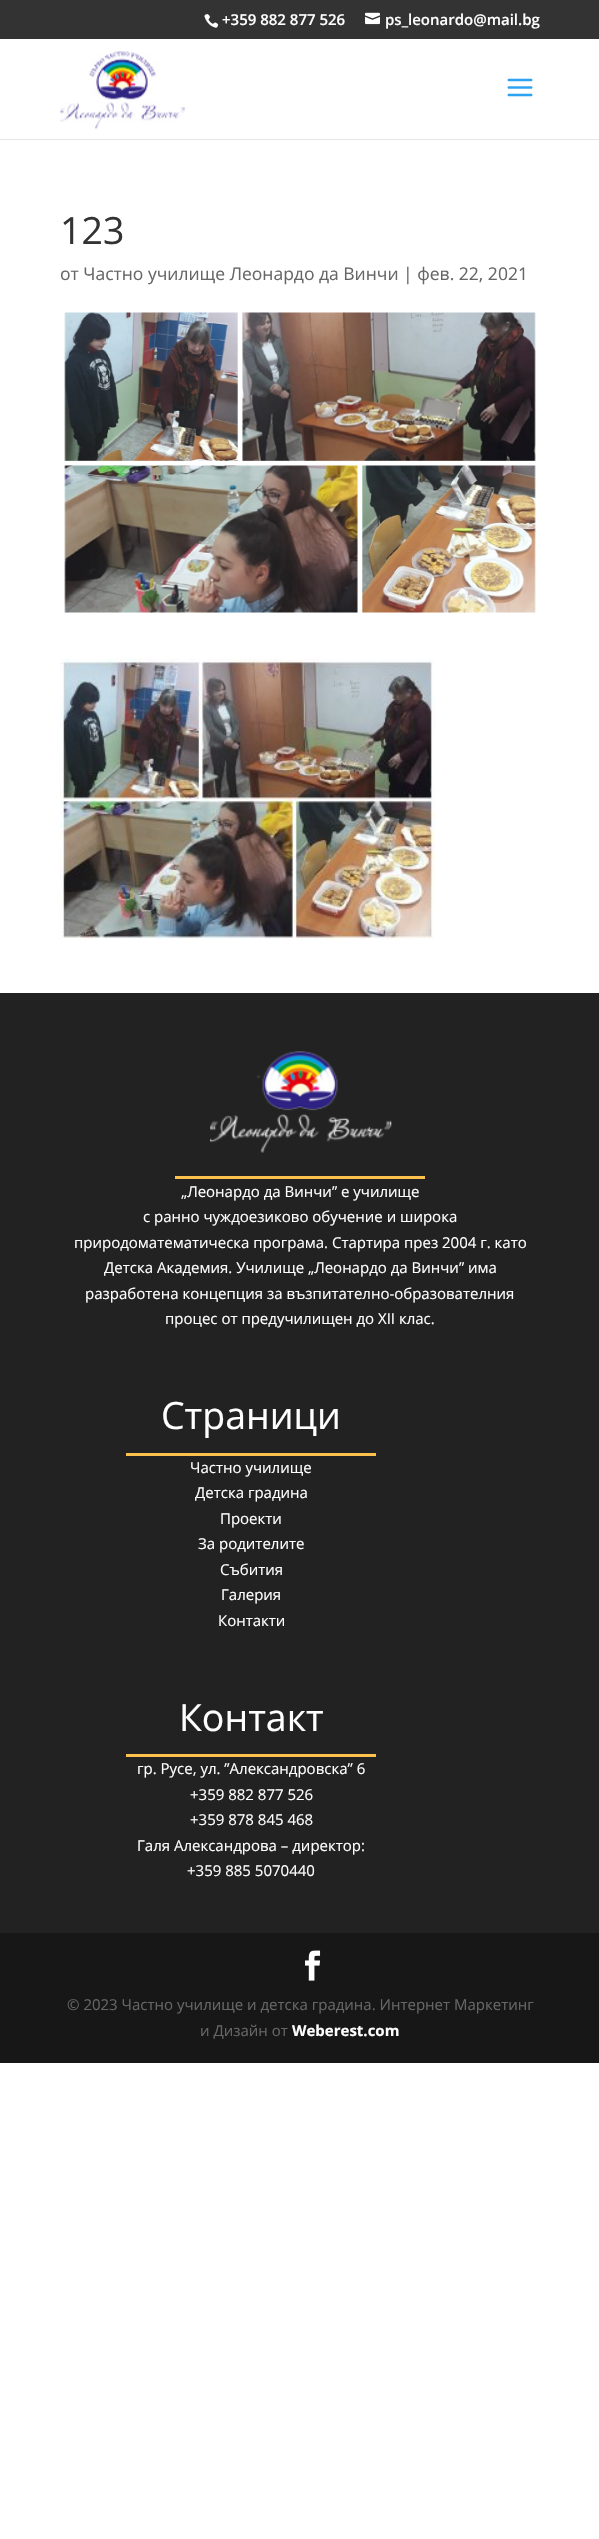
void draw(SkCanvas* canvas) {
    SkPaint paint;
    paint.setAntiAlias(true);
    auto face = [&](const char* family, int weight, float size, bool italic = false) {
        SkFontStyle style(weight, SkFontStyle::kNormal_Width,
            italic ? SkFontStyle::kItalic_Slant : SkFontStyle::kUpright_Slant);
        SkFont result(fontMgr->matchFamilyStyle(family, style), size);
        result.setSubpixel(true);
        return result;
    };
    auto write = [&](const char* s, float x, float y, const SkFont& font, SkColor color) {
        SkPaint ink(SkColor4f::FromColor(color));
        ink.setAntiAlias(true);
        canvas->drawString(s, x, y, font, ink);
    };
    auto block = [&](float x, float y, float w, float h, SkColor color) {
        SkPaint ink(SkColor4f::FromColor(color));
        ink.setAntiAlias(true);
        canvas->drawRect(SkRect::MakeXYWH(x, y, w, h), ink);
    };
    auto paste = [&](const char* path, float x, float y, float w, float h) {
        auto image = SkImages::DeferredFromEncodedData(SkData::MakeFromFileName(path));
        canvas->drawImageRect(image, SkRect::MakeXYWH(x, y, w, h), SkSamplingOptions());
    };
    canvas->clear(SK_ColorWHITE);
    block(0, 0, 599, 39, SkColorSetRGB(51, 51, 51));
    paste("pic1.png", 204, 14, 15, 14);
    auto kFont1 = face("Open Sans", 600, 15);
    write("+359 882 877 526", 222, 25, kFont1, SK_ColorWHITE);
    paste("pic2.png", 365, 12, 15, 13);
    write("ps_leonardo@mail.bg", 385, 25, kFont1, SK_ColorWHITE);
    block(0, 139, 599, 1, SkColorSetRGB(230, 230, 230));
    paste("pic3.png", 60, 51, 125, 79);
    paste("pic4.png", 507, 78, 26, 19);
    auto kFont2 = face("Open Sans", 400, 37.5f);
    write("123", 60, 244, kFont2, SkColorSetRGB(51, 51, 51));
    auto kFont3 = face("Open Sans", 400, 17.5f);
    write("от Частно училище Леонардо да Винчи | фев. 22, 2021", 60, 280, kFont3, SkColorSetRGB(102, 102, 102));
    paste("pic5.png", 64, 312, 472, 301);
    paste("pic6.png", 60, 658, 375, 282);
    block(0, 993, 599, 940, SkColorSetRGB(34, 34, 34));
    block(175, 1176, 250, 3, SkColorSetRGB(255, 193, 77));
    paste("pic7.png", 210, 1051, 182, 102);
    auto kFont4 = face("Open Sans", 400, 15);
    write("„Леонардо да Винчи” е училище", 181, 1197, kFont4, SK_ColorWHITE);
    write("с ранно чуждоезиково обучение и широка", 143, 1222, kFont4, SK_ColorWHITE);
    write("природоматематическа програма. Стартира през 2004 г. като", 74, 1248, kFont4, SK_ColorWHITE);
    write("Детска Академия. Училище „Леонардо да Винчи” има", 104, 1273, kFont4, SK_ColorWHITE);
    write("разработена концепция за възпитателно-образователния", 85, 1299, kFont4, SK_ColorWHITE);
    write("процес от предучилищен до XII клас.", 165, 1324, kFont4, SK_ColorWHITE);
    block(126, 1453, 250, 3, SkColorSetRGB(255, 193, 77));
    write("Страници", 161, 1429, kFont2, SK_ColorWHITE);
    write("Частно училище", 190, 1473, kFont4, SK_ColorWHITE);
    write("Детска градина", 195, 1498, kFont4, SK_ColorWHITE);
    write("Проекти", 220, 1524, kFont4, SK_ColorWHITE);
    write("За родителите", 198, 1549, kFont4, SK_ColorWHITE);
    write("Събития", 220, 1575, kFont4, SK_ColorWHITE);
    write("Галерия", 221, 1600, kFont4, SK_ColorWHITE);
    write("Контакти", 218, 1626, kFont4, SK_ColorWHITE);
    block(126, 1754, 250, 3, SkColorSetRGB(255, 193, 77));
    write("Контакт", 179, 1731, kFont2, SK_ColorWHITE);
    write("гр. Русе, ул. ”Александровска” 6", 137, 1774, kFont4, SK_ColorWHITE);
    write("+359 882 877 526", 190, 1800, kFont4, SK_ColorWHITE);
    write("+359 878 845 468", 190, 1825, kFont4, SK_ColorWHITE);
    write("Галя Александрова – директор:", 137, 1851, kFont4, SK_ColorWHITE);
    write("+359 885 5070440", 187, 1876, kFont4, SK_ColorWHITE);
    block(0, 1933, 599, 130, SkColorSetRGB(23, 23, 23));
    paste("pic8.png", 305, 1950, 16, 31);
    write("© 2023 Частно училище и детска градина. Интернет Маркетинг", 67, 2010, kFont4, SkColorSetRGB(102, 102, 102));
    write("и Дизайн от", 200, 2036, kFont4, SkColorSetRGB(102, 102, 102));
    auto kFont5 = face("Open Sans", 700, 15);
    write("Weberest.com", 292, 2036, kFont5, SK_ColorWHITE);
}
